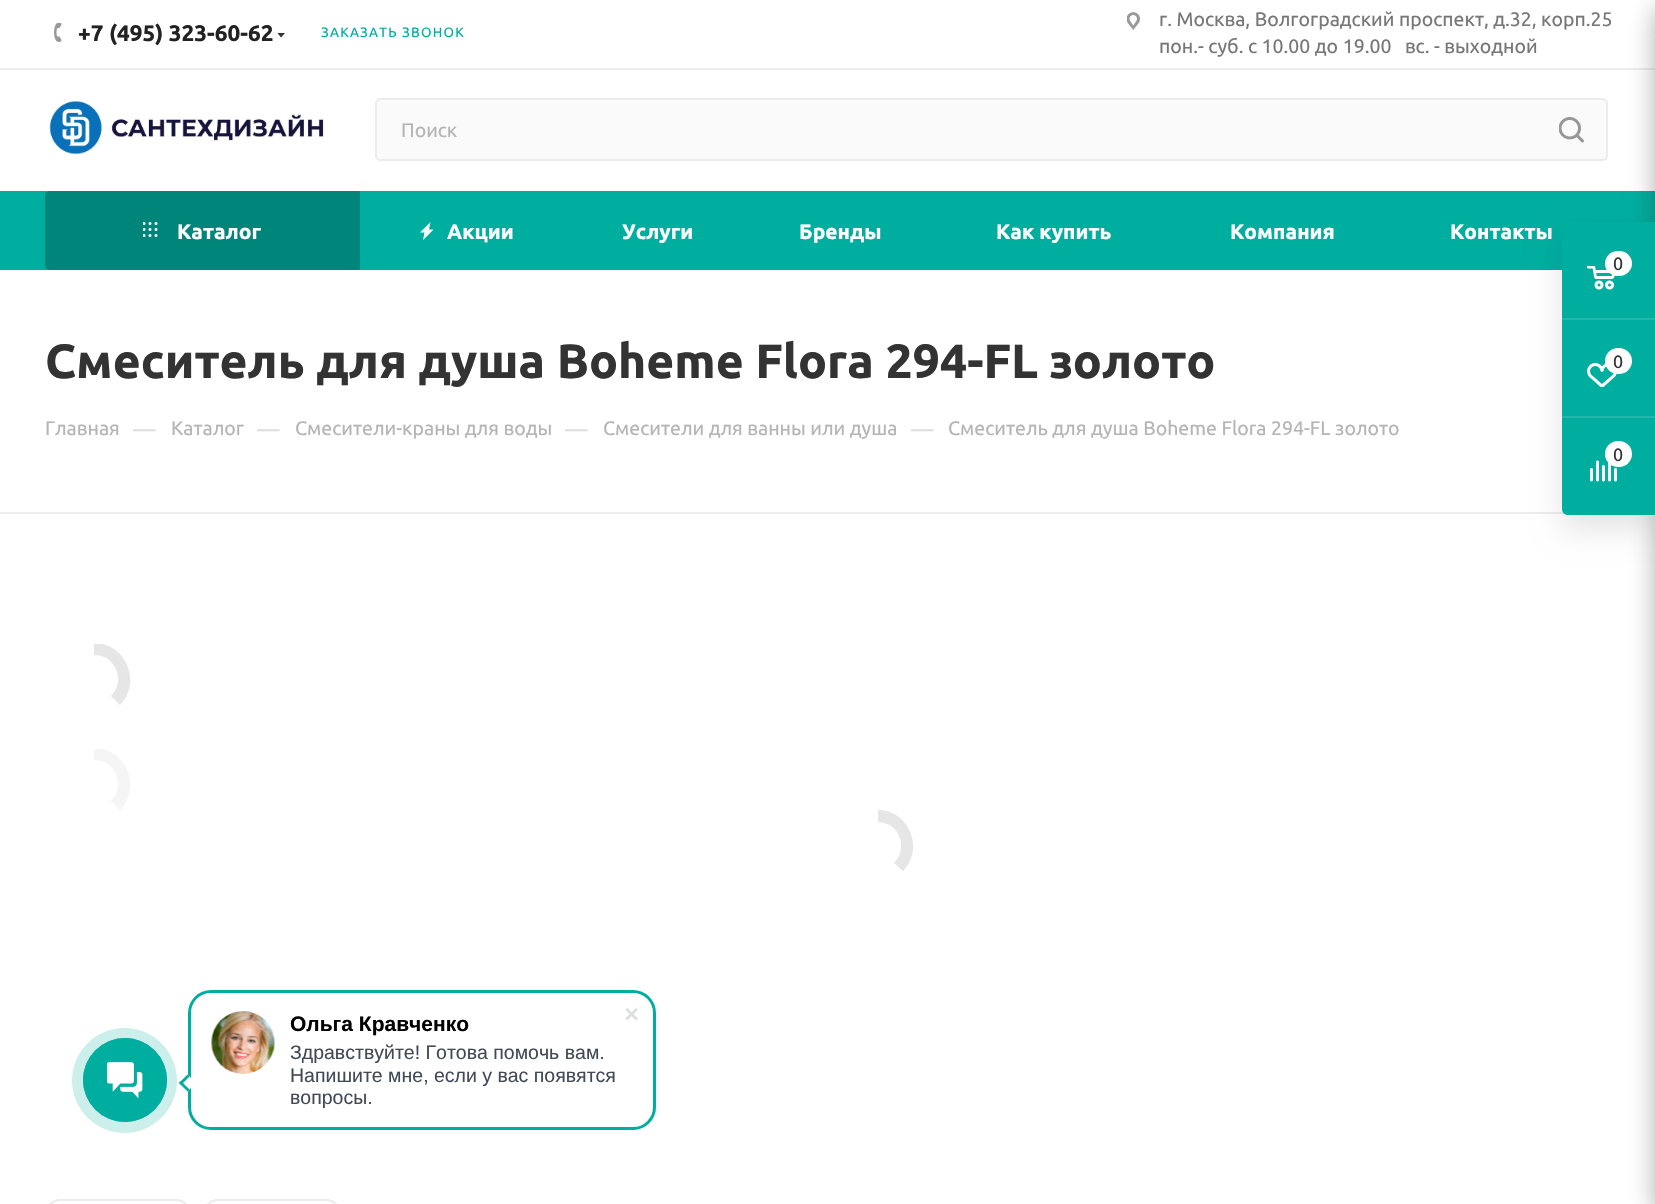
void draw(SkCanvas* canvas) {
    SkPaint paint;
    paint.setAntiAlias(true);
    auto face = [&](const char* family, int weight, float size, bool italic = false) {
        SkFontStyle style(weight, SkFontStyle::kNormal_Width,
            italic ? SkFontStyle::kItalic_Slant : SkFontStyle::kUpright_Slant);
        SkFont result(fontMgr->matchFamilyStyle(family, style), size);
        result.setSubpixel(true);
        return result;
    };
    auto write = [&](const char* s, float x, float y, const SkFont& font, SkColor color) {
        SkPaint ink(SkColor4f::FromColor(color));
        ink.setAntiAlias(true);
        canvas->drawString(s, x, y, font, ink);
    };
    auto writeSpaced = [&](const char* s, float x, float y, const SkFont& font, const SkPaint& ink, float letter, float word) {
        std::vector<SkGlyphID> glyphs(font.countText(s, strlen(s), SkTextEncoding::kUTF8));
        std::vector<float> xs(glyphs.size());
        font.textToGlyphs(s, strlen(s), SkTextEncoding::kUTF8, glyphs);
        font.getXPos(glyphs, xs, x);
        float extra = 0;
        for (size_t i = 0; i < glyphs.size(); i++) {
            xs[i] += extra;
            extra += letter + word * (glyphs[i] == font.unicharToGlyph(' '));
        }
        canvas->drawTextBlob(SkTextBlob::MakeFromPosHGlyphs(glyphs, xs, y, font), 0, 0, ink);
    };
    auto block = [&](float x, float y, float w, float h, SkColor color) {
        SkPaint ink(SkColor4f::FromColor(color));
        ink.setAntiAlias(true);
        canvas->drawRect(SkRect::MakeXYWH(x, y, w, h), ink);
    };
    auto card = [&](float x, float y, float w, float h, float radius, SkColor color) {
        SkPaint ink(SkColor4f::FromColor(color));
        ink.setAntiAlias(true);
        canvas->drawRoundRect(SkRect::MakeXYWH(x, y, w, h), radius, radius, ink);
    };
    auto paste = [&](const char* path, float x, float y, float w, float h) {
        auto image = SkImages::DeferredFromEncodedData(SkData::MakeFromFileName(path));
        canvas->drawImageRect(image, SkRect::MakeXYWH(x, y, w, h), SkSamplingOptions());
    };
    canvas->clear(SK_ColorWHITE);
    block(0, 68, 1655, 2, SkColorSetRGB(236, 236, 236));
    paste("pic1.png", 54, 23, 8, 19);
    auto kFont1 = face("Ubuntu", 700, 22.5f);
    write("+7 (495) 323-60-62", 78, 41, kFont1, SkColorSetRGB(34, 34, 34));
    paint.setColor(SkColorSetRGB(51, 51, 51));
    canvas->drawPath(SkPathBuilder(SkPathFillType::kEvenOdd).moveTo(277.5f, 33).lineTo(285, 33).lineTo(281, 37.5f).close().detach(), paint);
    auto kFont2 = face("Ubuntu", 400, 13.5f);
    paint.setColor(SkColorSetRGB(0, 174, 160));
    writeSpaced("ЗАКАЗАТЬ ЗВОНОК", 321, 37, kFont2, paint, 1.25f, 0);
    paste("pic2.png", 1127, 12, 13, 18);
    auto kFont3 = face("Ubuntu", 400, 19.5f);
    write("г. Москва, Волгоградский проспект, д.32, корп.25", 1159, 26, kFont3, SkColorSetRGB(119, 119, 119));
    write("пон.- суб. с 10.00 до 19.00   вс. - выходной", 1159, 53, kFont3, SkColorSetRGB(119, 119, 119));
    paste("pic3.png", 48, 99, 276, 56);
    paint.setColor(SkColorSetRGB(250, 250, 250));
    canvas->drawRoundRect(SkRect::MakeXYWH(376, 99, 1231, 61), 4, 4, paint);
    paint.setStyle(SkPaint::kStroke_Style);
    paint.setStrokeWidth(2);
    paint.setColor(SkColorSetRGB(236, 236, 236));
    canvas->drawRoundRect(SkRect::MakeXYWH(376, 99, 1231, 61), 4, 4, paint);
    write("Поиск", 401, 137, kFont3, SkColorSetRGB(182, 181, 181));
    paste("pic4.png", 1559, 117, 25, 26);
    block(0, 191, 1655, 79, SkColorSetRGB(0, 174, 160));
    paint.setStyle(SkPaint::kFill_Style);
    paint.setColor(SkColorSetRGB(0, 133, 122));
    canvas->drawPath(SkPathBuilder().moveTo(50, 191).lineTo(360, 191).lineTo(360, 270).lineTo(50, 270).cubicTo(47, 270, 45, 268, 45, 265).lineTo(45, 196).cubicTo(45, 193, 47, 191, 50, 191).close().detach(), paint);
    paste("pic5.png", 143, 222, 15, 15);
    auto kFont4 = face("Ubuntu", 700, 21);
    write("Каталог", 177, 239, kFont4, SK_ColorWHITE);
    paint.setColor(SK_ColorWHITE);
    canvas->drawPath(SkPathBuilder(SkPathFillType::kEvenOdd).moveTo(430.5f, 222).lineTo(420, 232.5f).lineTo(424.5f, 232.5f).lineTo(423, 240).lineTo(433.5f, 229.5f).lineTo(429, 229.5f).close().detach(), paint);
    write("Акции", 447, 239, kFont4, SK_ColorWHITE);
    write("Услуги", 622, 239, kFont4, SK_ColorWHITE);
    write("Бренды", 799, 239, kFont4, SK_ColorWHITE);
    write("Как купить", 996, 239, kFont4, SK_ColorWHITE);
    write("Компания", 1230, 239, kFont4, SK_ColorWHITE);
    write("Контакты", 1450, 239, kFont4, SK_ColorWHITE);
    auto kFont5 = face("Ubuntu", 700, 48);
    write("Смеситель для душа Boheme Flora 294-FL", 45, 378, kFont5, SkColorSetRGB(51, 51, 51));
    write("золото", 1049, 378, kFont5, SkColorSetRGB(51, 51, 51));
    write("Главная", 45, 435, kFont3, SkColorSetRGB(182, 181, 181));
    auto kFont6 = face("Ubuntu", 400, 22.5f);
    write("—", 133, 437, kFont6, SkColorSetRGB(221, 221, 221));
    write("Каталог", 171, 435, kFont3, SkColorSetRGB(182, 181, 181));
    write("—", 257, 437, kFont6, SkColorSetRGB(221, 221, 221));
    write("Смесители-краны для воды", 295, 435, kFont3, SkColorSetRGB(182, 181, 181));
    write("—", 565, 437, kFont6, SkColorSetRGB(221, 221, 221));
    write("Смесители для ванны или душа", 603, 435, kFont3, SkColorSetRGB(182, 181, 181));
    write("—", 911, 437, kFont6, SkColorSetRGB(221, 221, 221));
    write("Смеситель для душа Boheme Flora 294-FL золото", 948, 435, kFont3, SkColorSetRGB(182, 181, 181));
    block(0, 512, 1565, 2, SkColorSetRGB(236, 236, 236));
    canvas->save();
    canvas->clipRect(SkRect::MakeXYWH(59, 644, 72, 72));
    paint.setColor(SkColorSetRGB(230, 230, 230));
    canvas->drawPath(SkPathBuilder().moveTo(94, 643).cubicTo(126, 643, 142, 682, 120, 705).lineTo(111, 696).cubicTo(126, 681, 116, 655, 94, 655).close().detach(), paint);
    canvas->restore();
    canvas->save();
    canvas->clipRect(SkRect::MakeXYWH(59, 749, 72, 72));
    paint.setColor(SkColorSetRGB(245, 245, 245));
    canvas->drawPath(SkPathBuilder().moveTo(94, 748).cubicTo(126, 748, 142, 787, 120, 810).lineTo(111, 801).cubicTo(126, 786, 116, 760, 94, 760).close().detach(), paint);
    canvas->restore();
    paint.setColor(SkColorSetRGB(230, 230, 230));
    canvas->drawPath(SkPathBuilder().moveTo(878, 810).cubicTo(909, 810, 925, 849, 903, 871).lineTo(894, 863).cubicTo(909, 848, 899, 822, 878, 822).close().detach(), paint);
    paint.setStyle(SkPaint::kStroke_Style);
    paint.setColor(SkColorSetRGB(236, 236, 236));
    canvas->drawRoundRect(SkRect::MakeXYWH(46, 1200, 144, 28), 22, 22, paint);
    canvas->drawRoundRect(SkRect::MakeXYWH(204, 1200, 136, 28), 22, 22, paint);
    paint.setStyle(SkPaint::kFill_Style);
    paint.setColor(SkColorSetARGB(102, 44, 44, 44));
    paint.setMaskFilter(SkMaskFilter::MakeBlur(kNormal_SkBlurStyle, 13.5f));
    canvas->drawRoundRect(SkRect::MakeXYWH(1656, 9, 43, 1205), 3, 3, paint);
    paint.setMaskFilter(nullptr);
    paint.setColor(SkColorSetARGB(26, 0, 0, 0));
    paint.setMaskFilter(SkMaskFilter::MakeBlur(kNormal_SkBlurStyle, 15));
    canvas->drawRoundRect(SkRect::MakeXYWH(1562, 237, 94, 293), 6, 6, paint);
    paint.setMaskFilter(nullptr);
    paint.setColor(SkColorSetRGB(0, 174, 160));
    canvas->drawPath(SkPathBuilder().moveTo(1568, 222).lineTo(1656, 222).lineTo(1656, 515).lineTo(1568, 515).cubicTo(1564.5f, 515, 1562, 512.5f, 1562, 509).lineTo(1562, 228).cubicTo(1562, 224.5f, 1564.5f, 222, 1568, 222).close().detach(), paint);
    block(1562, 318, 93, 2, SkColorSetRGB(35, 183, 171));
    paste("pic6.png", 1587, 266, 28, 24);
    card(1605, 251, 27, 25, 12.5f, SK_ColorWHITE);
    auto kFont7 = face("Ubuntu", 400, 18);
    write("0", 1613, 270, kFont7, SkColorSetRGB(51, 51, 51));
    block(1562, 416, 93, 2, SkColorSetRGB(35, 183, 171));
    paste("pic7.png", 1587, 363, 30, 24);
    card(1605, 348, 27, 26, 13, SK_ColorWHITE);
    write("0", 1613, 368, kFont7, SkColorSetRGB(51, 51, 51));
    paste("pic8.png", 1590, 460, 27, 22);
    card(1605, 441, 27, 26, 13, SK_ColorWHITE);
    write("0", 1613, 461, kFont7, SkColorSetRGB(51, 51, 51));
    paint.setColor(SkColorSetRGB(204, 239, 236));
    canvas->drawCircle(124.5f, 1080.5f, 52.5f, paint);
    paint.setStyle(SkPaint::kStroke_Style);
    paint.setStrokeWidth(1);
    paint.setColor(SkColorSetRGB(0, 174, 160));
    canvas->drawCircle(125, 1080, 41.5f, paint);
    paint.setStyle(SkPaint::kFill_Style);
    canvas->drawCircle(125, 1080, 42, paint);
    paste("pic9.png", 107, 1062, 36, 36);
    paint.setStyle(SkPaint::kStroke_Style);
    paint.setStrokeWidth(3);
    canvas->drawRoundRect(SkRect::MakeXYWH(189.5f, 991.5f, 465, 137), 21.5f, 21.5f, paint);
    paste("pic10.png", 625, 1008, 13, 13);
    paint.setStyle(SkPaint::kFill_Style);
    paint.setColor(SK_ColorWHITE);
    canvas->drawPath(SkPathBuilder().moveTo(196, 1083).lineTo(187.5f, 1091.5f).lineTo(179, 1083).lineTo(187.5f, 1074.5f).close().detach(), paint);
    paint.setColor(SkColorSetRGB(0, 174, 160));
    canvas->drawPath(SkPathBuilder().moveTo(189.5f, 1089.5f).lineTo(187.5f, 1091.5f).lineTo(179, 1083).lineTo(181, 1081).close().detach(), paint);
    canvas->drawPath(SkPathBuilder().moveTo(189.5f, 1076.5f).lineTo(181, 1085).lineTo(179, 1083).lineTo(187.5f, 1074.5f).close().detach(), paint);
    paste("pic11.png", 211, 1011, 64, 63);
    auto kFont8 = face("Liberation Sans", 700, 21);
    write("Ольга Кравченко", 290, 1031, kFont8, SK_ColorBLACK);
    auto kFont9 = face("Liberation Sans", 400, 19.5f);
    write("Здравствуйте! Готова помочь вам.", 290, 1059, kFont9, SkColorSetRGB(66, 73, 86));
    write("Напишите мне, если у вас появятся", 290, 1082, kFont9, SkColorSetRGB(66, 73, 86));
    write("вопросы.", 290, 1104, kFont9, SkColorSetRGB(66, 73, 86));
}
